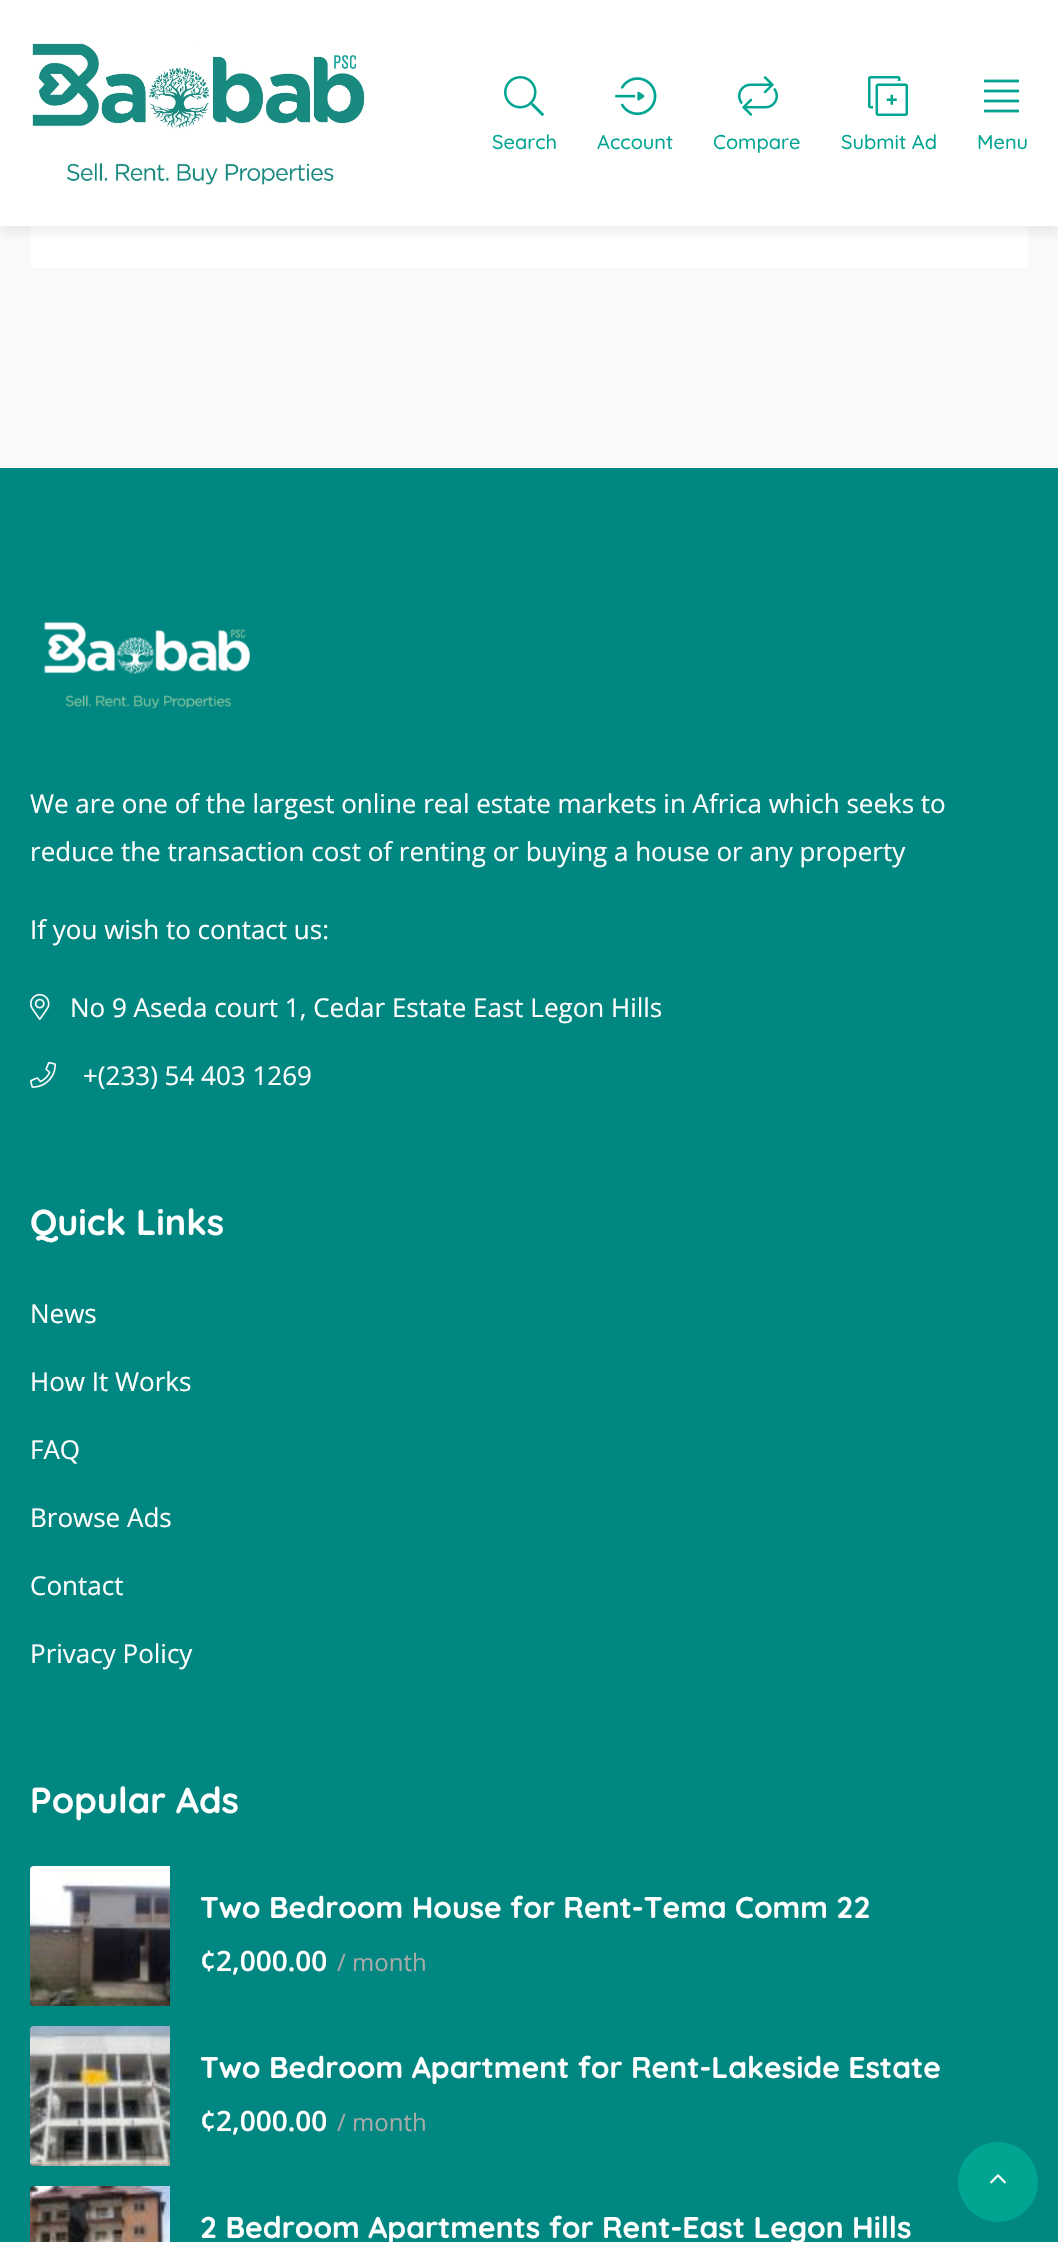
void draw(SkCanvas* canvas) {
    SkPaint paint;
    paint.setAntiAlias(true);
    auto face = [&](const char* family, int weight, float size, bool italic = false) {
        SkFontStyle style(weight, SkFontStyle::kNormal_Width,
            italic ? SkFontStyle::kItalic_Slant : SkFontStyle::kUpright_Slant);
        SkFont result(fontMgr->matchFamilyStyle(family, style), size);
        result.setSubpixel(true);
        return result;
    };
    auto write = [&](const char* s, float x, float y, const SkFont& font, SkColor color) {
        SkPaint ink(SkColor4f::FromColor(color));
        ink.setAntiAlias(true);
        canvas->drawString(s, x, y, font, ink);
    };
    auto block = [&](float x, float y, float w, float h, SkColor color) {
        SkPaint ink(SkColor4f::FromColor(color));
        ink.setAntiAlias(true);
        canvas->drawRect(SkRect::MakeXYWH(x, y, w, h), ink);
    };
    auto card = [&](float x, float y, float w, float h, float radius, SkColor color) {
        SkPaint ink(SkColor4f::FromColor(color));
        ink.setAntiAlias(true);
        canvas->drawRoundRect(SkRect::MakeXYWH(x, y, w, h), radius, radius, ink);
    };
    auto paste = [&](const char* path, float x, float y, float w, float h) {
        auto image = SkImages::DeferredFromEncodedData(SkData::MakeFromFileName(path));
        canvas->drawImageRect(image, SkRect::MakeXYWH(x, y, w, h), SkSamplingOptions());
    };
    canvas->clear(SkColorSetRGB(249, 249, 249));
    card(30, -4, 998, 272, 4, SK_ColorWHITE);
    paint.setColor(SkColorSetARGB(15, 23, 23, 23));
    paint.setMaskFilter(SkMaskFilter::MakeBlur(kNormal_SkBlurStyle, 4));
    canvas->drawRect(SkRect::MakeXYWH(0, 8, 1058, 226), paint);
    paint.setMaskFilter(nullptr);
    block(0, 0, 1058, 226, SK_ColorWHITE);
    paste("pic1.png", 32, 43, 333, 142);
    paste("pic2.png", 504, 76, 40, 40);
    auto kFont1 = face("Quicksand", 500, 20);
    write("Search", 492, 149, kFont1, SkColorSetRGB(0, 165, 145));
    paste("pic3.png", 615, 77, 42, 39);
    write("Account", 597, 149, kFont1, SkColorSetRGB(0, 165, 145));
    paste("pic4.png", 738, 76, 40, 40);
    write("Compare", 713, 149, kFont1, SkColorSetRGB(0, 165, 145));
    paste("pic5.png", 868, 76, 40, 40);
    write("Submit Ad", 841, 149, kFont1, SkColorSetRGB(0, 165, 145));
    paste("pic6.png", 984, 79, 35, 34);
    write("Menu", 977, 149, kFont1, SkColorSetRGB(0, 165, 145));
    block(0, 468, 1058, 1774, SkColorSetRGB(0, 135, 129));
    paste("pic7.png", 44, 621, 206, 88);
    auto kFont2 = face("Open Sans", 400, 26);
    write("We are one of the largest online real estate markets in Africa which seeks to", 30, 813, kFont2, SK_ColorWHITE);
    write("reduce the transaction cost of renting or buying a house or any property", 30, 861, kFont2, SK_ColorWHITE);
    write("If you wish to contact us:", 30, 939, kFont2, SK_ColorWHITE);
    paste("pic8.png", 30, 993, 20, 27);
    write("No 9 Aseda court 1, Cedar Estate East Legon Hills", 70, 1017, kFont2, SK_ColorWHITE);
    paste("pic9.png", 30, 1061, 26, 27);
    write("+(233) 54 403 1269", 83, 1085, kFont2, SK_ColorWHITE);
    auto kFont3 = face("Quicksand", 700, 36);
    write("Quick Links", 30, 1235, kFont3, SK_ColorWHITE);
    write("News", 30, 1323, kFont2, SK_ColorWHITE);
    write("How It Works", 30, 1391, kFont2, SK_ColorWHITE);
    write("FAQ", 30, 1459, kFont2, SK_ColorWHITE);
    write("Browse Ads", 30, 1527, kFont2, SK_ColorWHITE);
    write("Contact", 30, 1595, kFont2, SK_ColorWHITE);
    write("Privacy Policy", 30, 1663, kFont2, SK_ColorWHITE);
    write("Popular Ads", 30, 1813, kFont3, SK_ColorWHITE);
    paste("pic10.png", 30, 1866, 140, 140);
    auto kFont4 = face("Quicksand", 700, 30);
    write("Two Bedroom House for Rent-Tema Comm 22", 200, 1918, kFont4, SK_ColorWHITE);
    auto kFont5 = face("Open Sans", 600, 28);
    write("¢2,000.00", 200, 1971, kFont5, SK_ColorWHITE);
    auto kFont6 = face("Open Sans", 400, 24);
    write("/ month", 337, 1971, kFont6, SkColorSetRGB(170, 170, 170));
    paste("pic11.png", 30, 2026, 140, 140);
    write("Two Bedroom Apartment for Rent-Lakeside Estate", 200, 2078, kFont4, SK_ColorWHITE);
    write("¢2,000.00", 200, 2131, kFont5, SK_ColorWHITE);
    write("/ month", 337, 2131, kFont6, SkColorSetRGB(170, 170, 170));
    paste("pic12.png", 30, 2186, 140, 56);
    write("2 Bedroom Apartments for Rent-East Legon Hills", 200, 2238, kFont4, SK_ColorWHITE);
    paint.setColor(SkColorSetRGB(0, 165, 145));
    canvas->drawCircle(998, 2182, 40, paint);
    paste("pic13.png", 990, 2174, 16, 10);
}
